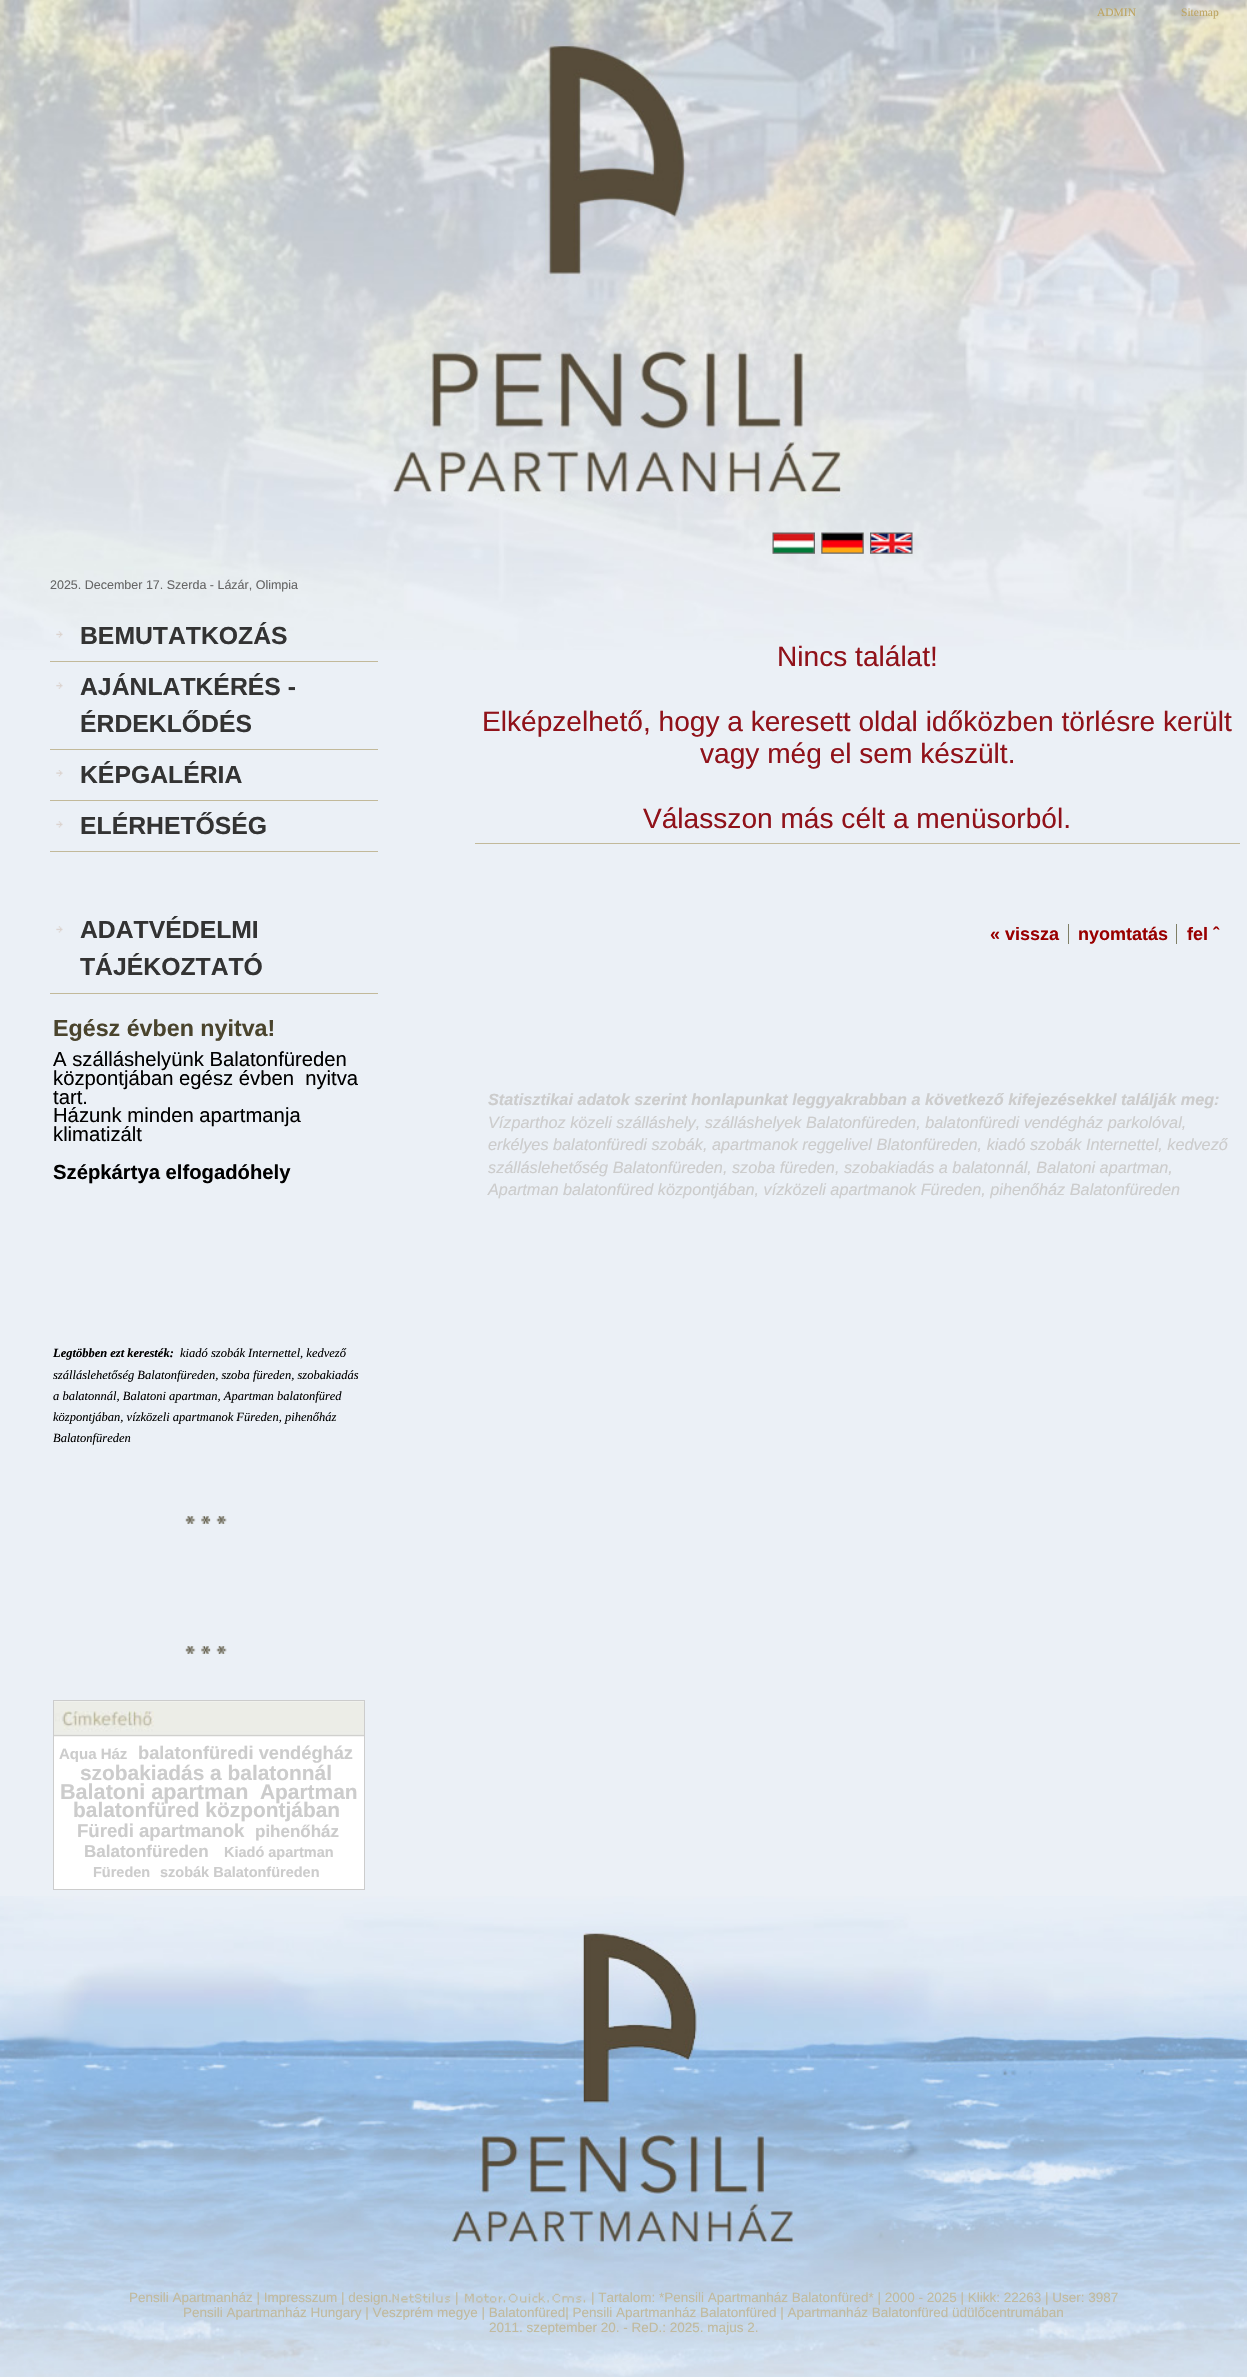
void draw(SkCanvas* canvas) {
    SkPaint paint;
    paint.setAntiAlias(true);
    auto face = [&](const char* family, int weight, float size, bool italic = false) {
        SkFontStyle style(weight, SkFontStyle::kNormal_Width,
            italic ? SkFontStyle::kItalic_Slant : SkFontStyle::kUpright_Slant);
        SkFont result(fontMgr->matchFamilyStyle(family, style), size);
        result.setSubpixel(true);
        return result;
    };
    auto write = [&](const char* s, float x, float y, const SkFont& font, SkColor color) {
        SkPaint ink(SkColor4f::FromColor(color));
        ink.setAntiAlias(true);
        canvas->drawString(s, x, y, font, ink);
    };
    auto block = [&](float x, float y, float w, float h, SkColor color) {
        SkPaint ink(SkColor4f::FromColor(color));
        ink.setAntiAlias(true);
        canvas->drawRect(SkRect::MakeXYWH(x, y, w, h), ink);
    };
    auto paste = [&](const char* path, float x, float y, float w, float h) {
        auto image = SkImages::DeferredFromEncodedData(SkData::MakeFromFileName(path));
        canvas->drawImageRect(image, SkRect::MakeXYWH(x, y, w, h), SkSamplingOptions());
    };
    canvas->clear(SkColorSetRGB(235, 240, 246));
    paste("pic1.png", 0, 0, 1247, 650);
    auto kFont1 = face("Liberation Serif", 400, 11.5f);
    write("ADMIN", 1097, 16, kFont1, SkColorSetRGB(190, 165, 97));
    write("Sitemap", 1181, 16, kFont1, SkColorSetRGB(190, 165, 97));
    paste("pic2.png", 772, 532, 43, 22);
    paste("pic3.png", 821, 532, 43, 22);
    paste("pic4.png", 870, 532, 43, 22);
    auto kFont2 = face("Liberation Sans", 400, 12.5f);
    write("2025. December 17. Szerda - Lázár, Olimpia", 50, 589, kFont2, SkColorSetRGB(102, 102, 102));
    paste("pic5.png", 56, 631, 7, 7);
    block(50, 661, 328, 1, SkColorSetRGB(194, 185, 154));
    auto kFont3 = face("Liberation Sans", 700, 24.75f);
    write("BEMUTATKOZÁS", 80, 644, kFont3, SkColorSetRGB(51, 51, 51));
    paste("pic6.png", 56, 682, 7, 7);
    block(50, 749, 328, 1, SkColorSetRGB(194, 185, 154));
    write("AJÁNLATKÉRÉS -", 80, 695, kFont3, SkColorSetRGB(51, 51, 51));
    write("ÉRDEKLŐDÉS", 80, 732, kFont3, SkColorSetRGB(51, 51, 51));
    paste("pic7.png", 56, 770, 7, 7);
    block(50, 800, 328, 1, SkColorSetRGB(194, 185, 154));
    write("KÉPGALÉRIA", 80, 783, kFont3, SkColorSetRGB(51, 51, 51));
    paste("pic8.png", 56, 821, 7, 7);
    block(50, 851, 328, 1, SkColorSetRGB(194, 185, 154));
    write("ELÉRHETŐSÉG", 80, 834, kFont3, SkColorSetRGB(51, 51, 51));
    paste("pic8.png", 56, 926, 7, 7);
    block(50, 993, 328, 1, SkColorSetRGB(194, 185, 154));
    write("ADATVÉDELMI", 80, 938, kFont3, SkColorSetRGB(51, 51, 51));
    write("TÁJÉKOZTATÓ", 80, 975, kFont3, SkColorSetRGB(51, 51, 51));
    auto kFont4 = face("Liberation Sans", 700, 23.25f);
    write("Egész évben nyitva!", 53, 1036, kFont4, SkColorSetRGB(74, 68, 45));
    auto kFont5 = face("Liberation Sans", 400, 20.25f);
    write("A szálláshelyünk Balatonfüreden", 53, 1066, kFont5, SK_ColorBLACK);
    write("központjában egész évben  nyitva", 53, 1085, kFont5, SK_ColorBLACK);
    write("tart.", 53, 1104, kFont5, SK_ColorBLACK);
    write("Házunk minden apartmanja", 53, 1122, kFont5, SK_ColorBLACK);
    write("klimatizált", 53, 1141, kFont5, SK_ColorBLACK);
    auto kFont6 = face("Liberation Sans", 700, 20.25f);
    write("Szépkártya elfogadóhely", 53, 1179, kFont6, SK_ColorBLACK);
    auto kFont7 = face("Liberation Serif", 700, 12.5f, true);
    write("Legtöbben ezt keresték:", 53, 1357, kFont7, SK_ColorBLACK);
    auto kFont8 = face("Liberation Serif", 400, 12.5f, true);
    write("kiadó szobák Internettel, kedvező", 180, 1357, kFont8, SK_ColorBLACK);
    write("szálláslehetőség Balatonfüreden, szoba füreden, szobakiadás", 53, 1379, kFont8, SK_ColorBLACK);
    write("a balatonnál, Balatoni apartman, Apartman balatonfüred", 53, 1400, kFont8, SK_ColorBLACK);
    write("központjában, vízközeli apartmanok Füreden, pihenőház", 53, 1421, kFont8, SK_ColorBLACK);
    write("Balatonfüreden", 53, 1442, kFont8, SK_ColorBLACK);
    paste("pic9.png", 185, 1516, 42, 8);
    paste("pic9.png", 185, 1646, 42, 8);
    block(54, 1701, 310, 188, SK_ColorWHITE);
    paste("pic10.png", 54, 1701, 310, 36);
    paint.setStyle(SkPaint::kStroke_Style);
    paint.setStrokeWidth(1);
    paint.setColor(SkColorSetRGB(204, 204, 204));
    canvas->drawRect(SkRect::MakeXYWH(53.5f, 1700.5f, 311, 189), paint);
    auto kFont9 = face("Liberation Sans", 700, 15);
    write("Aqua Ház", 59, 1759, kFont9, SkColorSetRGB(204, 204, 204));
    auto kFont10 = face("Liberation Sans", 700, 18.25f);
    write("balatonfüredi vendégház", 138, 1759, kFont10, SkColorSetRGB(204, 204, 204));
    auto kFont11 = face("Liberation Sans", 700, 20.9f);
    write("szobakiadás a balatonnál", 80, 1780, kFont11, SkColorSetRGB(204, 204, 204));
    auto kFont12 = face("Liberation Sans", 700, 21.6f);
    write("Balatoni apartman", 60, 1799, kFont12, SkColorSetRGB(204, 204, 204));
    write("Apartman", 260, 1799, kFont11, SkColorSetRGB(204, 204, 204));
    write("balatonfüred központjában", 73, 1817, kFont11, SkColorSetRGB(204, 204, 204));
    auto kFont13 = face("Liberation Sans", 700, 18.6f);
    write("Füredi apartmanok", 77, 1837, kFont13, SkColorSetRGB(204, 204, 204));
    auto kFont14 = face("Liberation Sans", 700, 17);
    write("pihenőház", 255, 1837, kFont14, SkColorSetRGB(204, 204, 204));
    write("Balatonfüreden", 84, 1857, kFont14, SkColorSetRGB(204, 204, 204));
    auto kFont15 = face("Liberation Sans", 700, 14.5f);
    write("Kiadó apartman", 224, 1857, kFont15, SkColorSetRGB(204, 204, 204));
    write("Füreden", 93, 1877, kFont15, SkColorSetRGB(204, 204, 204));
    write("szobák Balatonfüreden", 160, 1877, kFont15, SkColorSetRGB(204, 204, 204));
    block(475, 843, 765, 1, SkColorSetRGB(194, 185, 154));
    auto kFont16 = face("Liberation Sans", 400, 28.1f);
    write("Nincs találat!", 777, 666, kFont16, SkColorSetRGB(144, 18, 26));
    write("Elképzelhető, hogy a keresett oldal időközben törlésre került", 482, 731, kFont16, SkColorSetRGB(144, 18, 26));
    write("vagy még el sem készült.", 700, 763, kFont16, SkColorSetRGB(144, 18, 26));
    write("Válasszon más célt a menüsorból.", 643, 828, kFont16, SkColorSetRGB(144, 18, 26));
    auto kFont17 = face("Liberation Sans", 700, 18);
    write("« vissza", 990, 940, kFont17, SkColorSetRGB(153, 0, 0));
    write("nyomtatás", 1078, 940, kFont17, SkColorSetRGB(153, 0, 0));
    block(1068, 924, 1, 20, SkColorSetRGB(127, 127, 102));
    write("fel ˆ", 1187, 940, kFont17, SkColorSetRGB(153, 0, 0));
    block(1176, 924, 1, 20, SkColorSetRGB(127, 127, 102));
    auto kFont18 = face("Liberation Sans", 700, 16.25f, true);
    write("Statisztikai adatok szerint honlapunkat leggyakrabban a következő kifejezésekkel találják meg:", 488, 1105, kFont18, SkColorSetRGB(204, 204, 204));
    auto kFont19 = face("Liberation Sans", 400, 16.25f, true);
    write("Vízparthoz közeli szálláshely, szálláshelyek Balatonfüreden, balatonfüredi vendégház parkolóval,", 488, 1128, kFont19, SkColorSetRGB(204, 204, 204));
    write("erkélyes balatonfüredi szobák, apartmanok reggelivel Blatonfüreden, kiadó szobák Internettel, kedvező", 488, 1150, kFont19, SkColorSetRGB(204, 204, 204));
    write("szálláslehetőség Balatonfüreden, szoba füreden, szobakiadás a balatonnál, Balatoni apartman,", 488, 1173, kFont19, SkColorSetRGB(204, 204, 204));
    write("Apartman balatonfüred központjában, vízközeli apartmanok Füreden, pihenőház Balatonfüreden", 488, 1195, kFont19, SkColorSetRGB(204, 204, 204));
    paste("pic11.png", 0, 1896, 1247, 481);
    auto kFont20 = face("Liberation Sans", 400, 13.5f);
    write("Pensili Apartmanház | Impresszum | design.", 129, 2302, kFont20, SkColorSetRGB(193, 186, 158));
    paste("pic12.png", 392, 2292, 59, 11);
    write("|", 455, 2302, kFont20, SkColorSetRGB(193, 186, 158));
    paste("pic13.png", 464, 2292, 122, 11);
    write("| Tartalom: *Pensili Apartmanház Balatonfüred* | 2000 - 2025 | Klikk: 22263 | User: 3987", 591, 2302, kFont20, SkColorSetRGB(193, 186, 158));
    write("Pensili Apartmanház Hungary | Veszprém megye | Balatonfüred| Pensili Apartmanház Balatonfüred | Apartmanház Balatonfüred üdülőcentrumában", 183, 2317, kFont20, SkColorSetRGB(193, 186, 158));
    write("2011. szeptember 20. - ReD.: 2025. majus 2.", 489, 2332, kFont20, SkColorSetRGB(193, 186, 158));
}
